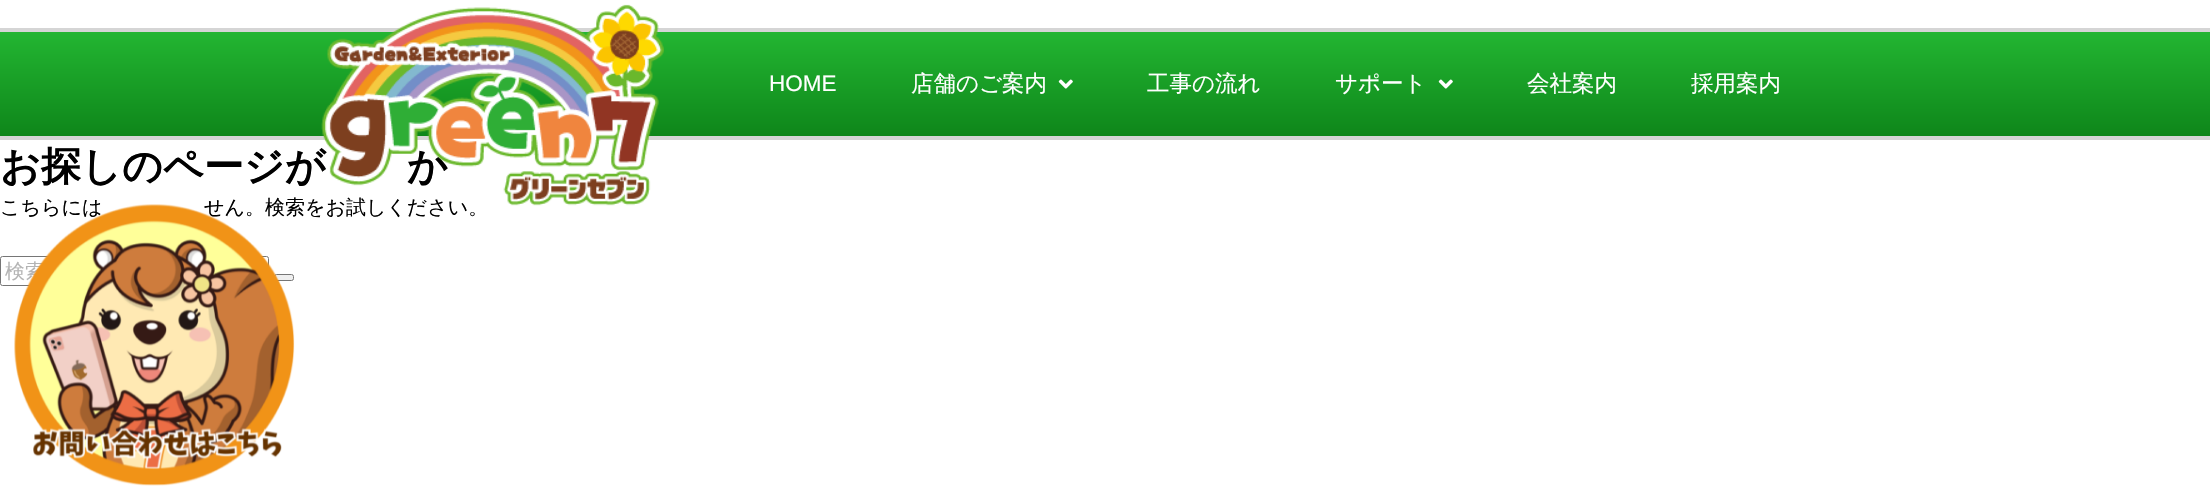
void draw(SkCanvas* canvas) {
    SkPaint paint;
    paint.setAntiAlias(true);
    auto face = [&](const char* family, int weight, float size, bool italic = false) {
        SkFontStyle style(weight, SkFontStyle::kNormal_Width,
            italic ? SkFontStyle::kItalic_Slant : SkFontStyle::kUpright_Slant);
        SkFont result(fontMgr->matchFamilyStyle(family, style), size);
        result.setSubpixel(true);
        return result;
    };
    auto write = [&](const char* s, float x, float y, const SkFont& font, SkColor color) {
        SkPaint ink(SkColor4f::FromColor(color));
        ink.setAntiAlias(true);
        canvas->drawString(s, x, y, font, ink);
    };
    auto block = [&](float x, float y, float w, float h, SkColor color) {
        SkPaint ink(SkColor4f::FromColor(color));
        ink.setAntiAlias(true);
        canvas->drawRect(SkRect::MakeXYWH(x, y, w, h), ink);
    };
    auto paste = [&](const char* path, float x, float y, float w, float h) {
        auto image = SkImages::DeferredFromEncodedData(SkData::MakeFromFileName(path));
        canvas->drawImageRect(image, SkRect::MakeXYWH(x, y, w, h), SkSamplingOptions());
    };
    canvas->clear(SK_ColorWHITE);
    {
        const SkColor colors[] = {SkColorSetRGB(35, 182, 50), SkColorSetRGB(14, 134, 26)};
        const float stops[] = {0, 1};
        const SkPoint ends[] = {{1105, 31}, {1105, 136}};
        paint.setShader(SkGradientShader::MakeLinear(ends, colors, stops, 2, SkTileMode::kClamp));
        paint.setAlpha(255);
    }
    canvas->drawRect(SkRect::MakeXYWH(0, 32, 2210, 104), paint);
    block(0, 28, 2210, 4, SkColorSetRGB(213, 213, 213));
    block(0, 136, 2210, 4, SkColorSetRGB(213, 213, 213));
    auto kFont1 = face("WenQuanYi Zen Hei", 700, 40);
    write("お探しのページが", 0, 180, kFont1, SK_ColorBLACK);
    write("か", 407, 180, kFont1, SK_ColorBLACK);
    auto kFont2 = face("WenQuanYi Zen Hei", 500, 20);
    write("せん。検索をお試しください。", 204, 214, kFont2, SK_ColorBLACK);
    paste("pic1.png", 321, 4, 343, 202);
    auto kFont3 = face("Liberation Sans", 400, 22.5f);
    write("HOME", 769, 91, kFont3, SK_ColorWHITE);
    auto kFont4 = face("WenQuanYi Zen Hei", 500, 22.5f);
    write("店舗のご案内", 911, 91, kFont4, SK_ColorWHITE);
    paste("pic2.png", 1058, 79, 15, 10);
    write("工事の流れ", 1147, 91, kFont4, SK_ColorWHITE);
    write("サポート", 1335, 91, kFont4, SK_ColorWHITE);
    paste("pic2.png", 1438, 79, 15, 10);
    write("会社案内", 1527, 91, kFont4, SK_ColorWHITE);
    write("採用案内", 1691, 91, kFont4, SK_ColorWHITE);
    write("こちらには", 0, 214, kFont2, SK_ColorBLACK);
    paint.setStyle(SkPaint::kStroke_Style);
    paint.setStrokeWidth(1);
    paint.setShader(nullptr);
    paint.setColor(SkColorSetRGB(118, 118, 118));
    canvas->drawRoundRect(SkRect::MakeXYWH(0.5f, 256.5f, 268, 29), 2, 2, paint);
    write("検索", 5, 278, kFont2, SkColorSetRGB(180, 180, 180));
    paint.setStyle(SkPaint::kFill_Style);
    paint.setColor(SkColorSetRGB(239, 239, 239));
    canvas->drawRoundRect(SkRect::MakeXYWH(274.5f, 274.5f, 19, 6), 2, 2, paint);
    paint.setStyle(SkPaint::kStroke_Style);
    paint.setColor(SkColorSetRGB(118, 118, 118));
    canvas->drawRoundRect(SkRect::MakeXYWH(274.5f, 274.5f, 19, 6), 2, 2, paint);
    paste("pic3.png", 14, 204, 281, 282);
}
